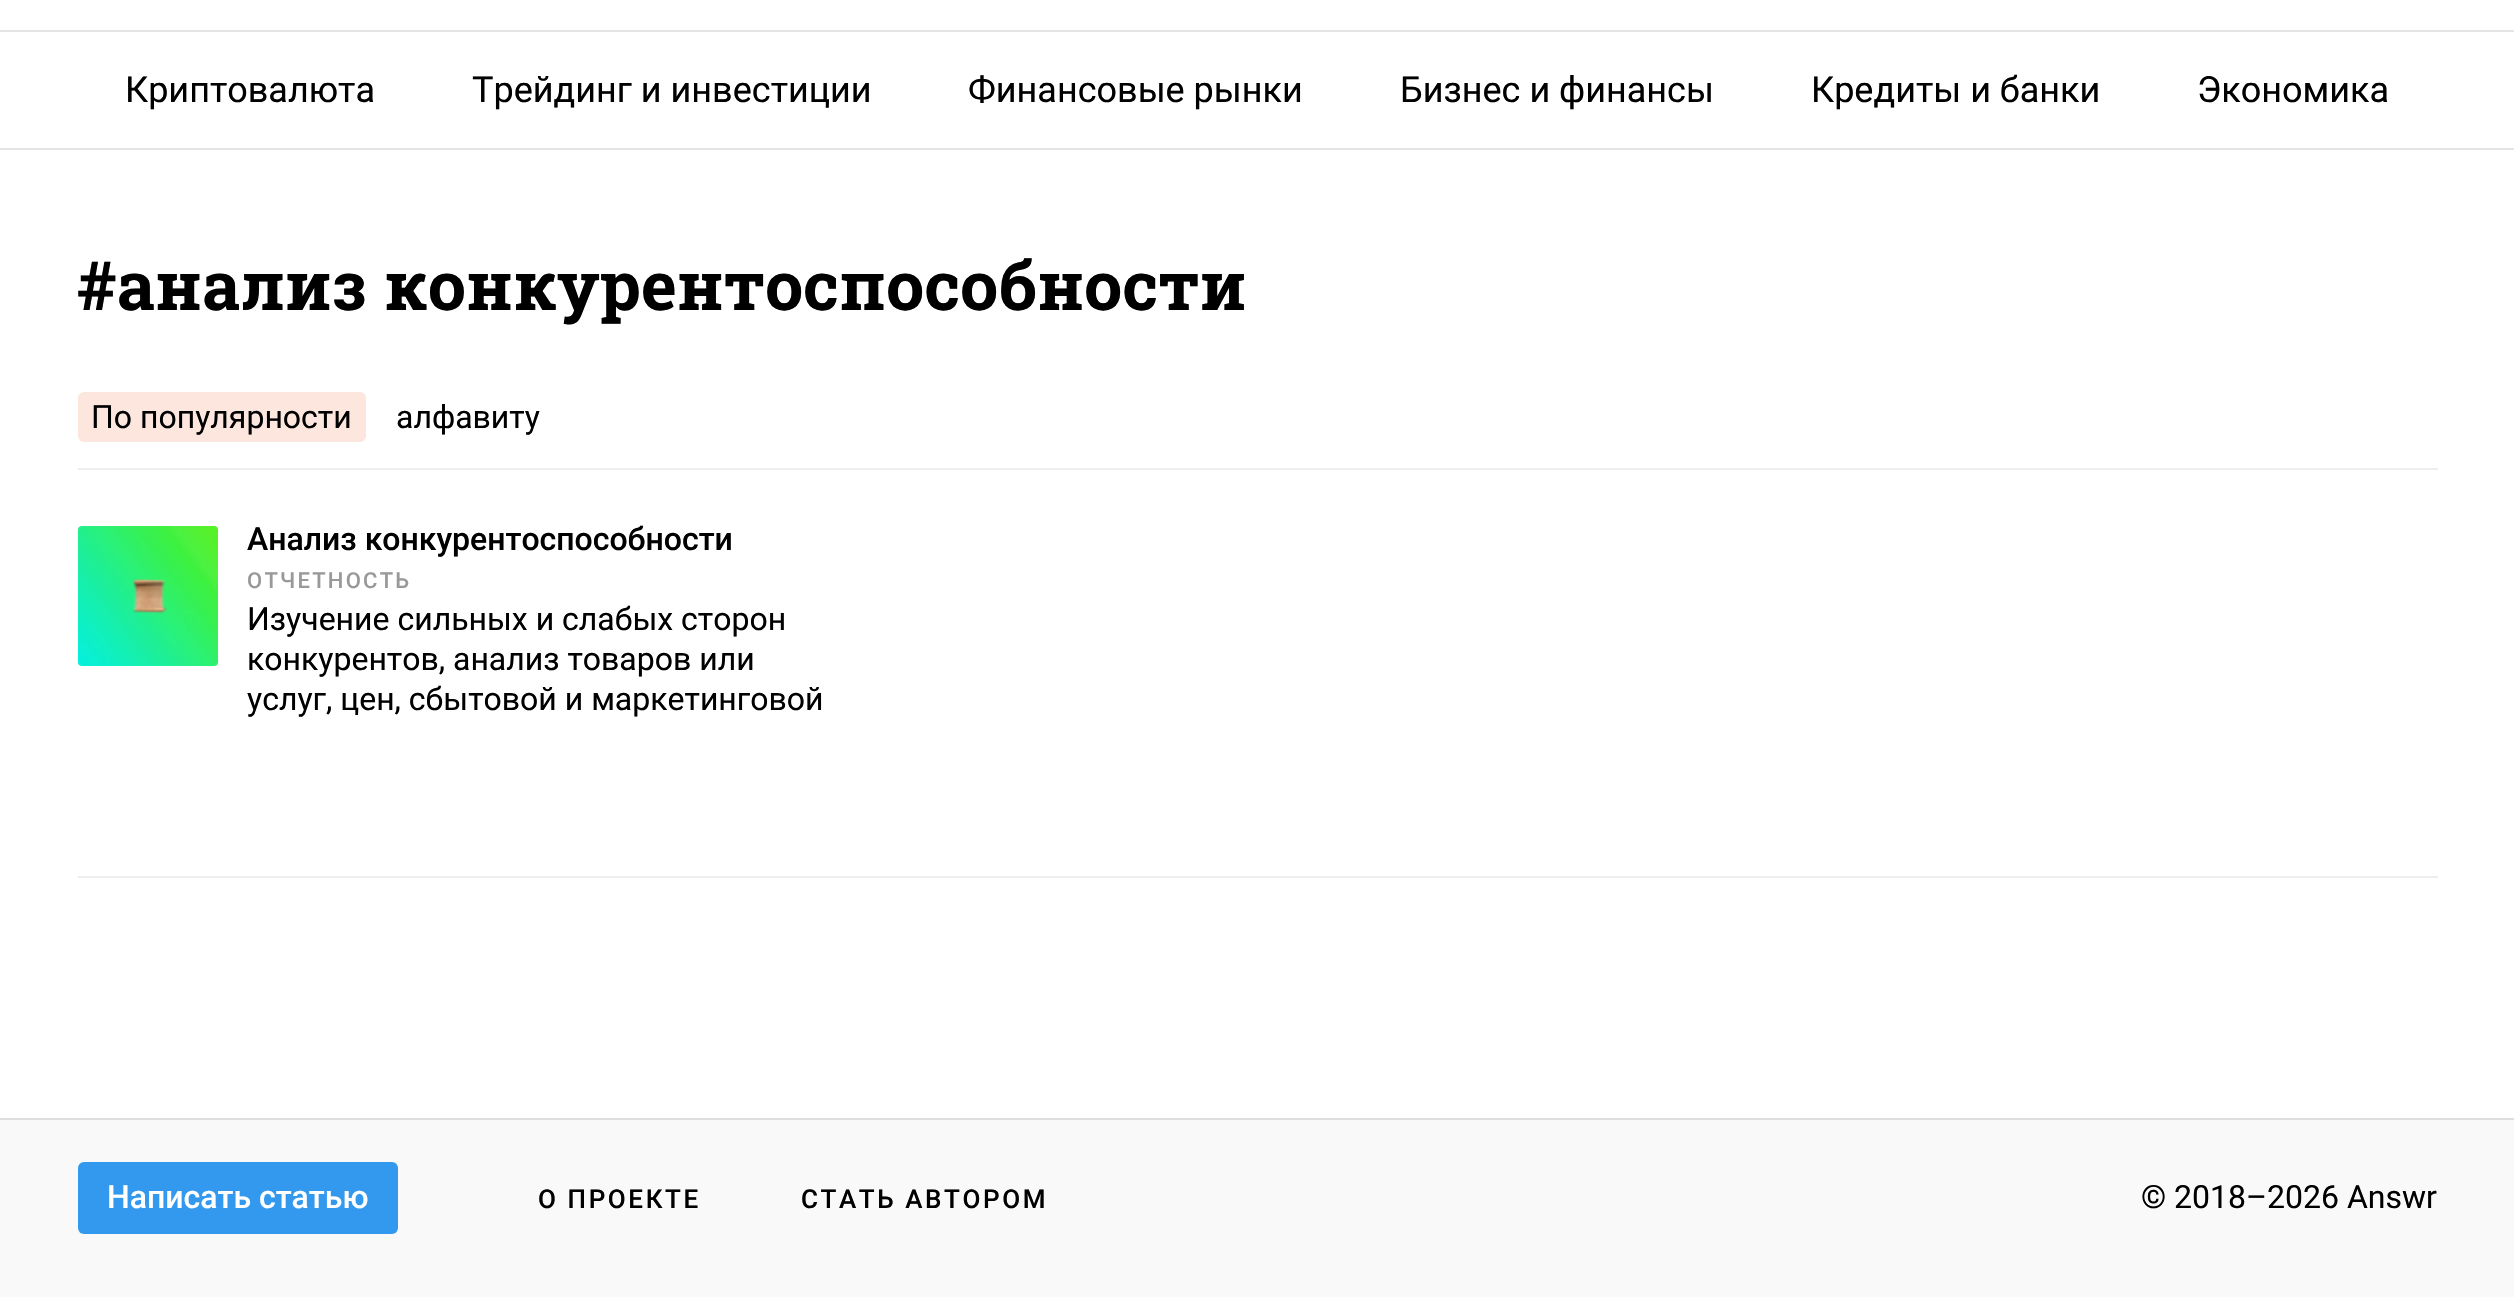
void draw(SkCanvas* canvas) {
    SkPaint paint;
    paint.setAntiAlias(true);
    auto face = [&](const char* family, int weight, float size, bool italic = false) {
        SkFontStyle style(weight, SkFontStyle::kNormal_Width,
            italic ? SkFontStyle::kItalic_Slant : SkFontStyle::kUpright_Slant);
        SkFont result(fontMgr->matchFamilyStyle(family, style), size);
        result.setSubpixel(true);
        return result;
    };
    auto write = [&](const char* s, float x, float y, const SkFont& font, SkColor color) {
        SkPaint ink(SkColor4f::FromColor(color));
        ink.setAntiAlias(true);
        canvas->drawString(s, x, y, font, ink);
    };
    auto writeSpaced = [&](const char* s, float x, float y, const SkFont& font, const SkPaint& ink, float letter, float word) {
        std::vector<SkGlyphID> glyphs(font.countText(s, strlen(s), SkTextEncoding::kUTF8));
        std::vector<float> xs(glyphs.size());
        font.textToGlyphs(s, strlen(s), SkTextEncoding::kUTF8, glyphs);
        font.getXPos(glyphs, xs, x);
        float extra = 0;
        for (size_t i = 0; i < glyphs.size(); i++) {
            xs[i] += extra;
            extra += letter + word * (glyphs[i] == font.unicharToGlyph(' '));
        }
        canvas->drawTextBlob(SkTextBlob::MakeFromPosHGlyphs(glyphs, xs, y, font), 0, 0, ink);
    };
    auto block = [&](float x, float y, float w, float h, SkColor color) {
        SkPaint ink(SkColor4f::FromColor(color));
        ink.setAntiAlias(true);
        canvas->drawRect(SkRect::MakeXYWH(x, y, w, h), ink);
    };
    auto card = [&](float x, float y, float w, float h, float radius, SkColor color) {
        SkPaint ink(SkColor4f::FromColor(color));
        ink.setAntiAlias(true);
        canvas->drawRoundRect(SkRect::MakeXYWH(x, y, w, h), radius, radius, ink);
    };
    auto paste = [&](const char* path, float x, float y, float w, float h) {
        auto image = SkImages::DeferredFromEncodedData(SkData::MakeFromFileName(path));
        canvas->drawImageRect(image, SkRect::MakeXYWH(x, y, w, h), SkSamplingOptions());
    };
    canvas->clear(SK_ColorWHITE);
    block(0, 30, 2514, 2, SkColorSetRGB(228, 228, 228));
    block(0, 148, 2514, 2, SkColorSetRGB(228, 228, 228));
    auto kFont1 = face("Roboto", 400, 36);
    write("Криптовалюта", 125, 102, kFont1, SK_ColorBLACK);
    write("Трейдинг и инвестиции", 472, 102, kFont1, SK_ColorBLACK);
    write("Финансовые рынки", 968, 102, kFont1, SK_ColorBLACK);
    write("Бизнес и финансы", 1400, 102, kFont1, SK_ColorBLACK);
    write("Кредиты и банки", 1811, 102, kFont1, SK_ColorBLACK);
    write("Экономика", 2197, 102, kFont1, SK_ColorBLACK);
    block(78, 468, 2360, 2, SkColorSetRGB(238, 238, 238));
    auto kFont2 = face("Roboto Slab", 700, 68);
    write("#анализ конкурентоспособности", 77, 310, kFont2, SK_ColorBLACK);
    card(78, 392, 288, 50, 6, SkColorSetRGB(252, 230, 222));
    auto kFont3 = face("Roboto", 400, 32);
    write("По популярности", 91, 428, kFont3, SK_ColorBLACK);
    write("алфавиту", 396, 428, kFont3, SK_ColorBLACK);
    paste("pic1.png", 78, 526, 140, 140);
    auto kFont4 = face("Roboto", 500, 32);
    write("Анализ конкурентоспособности", 247, 550, kFont4, SK_ColorBLACK);
    auto kFont5 = face("Roboto", 500, 22);
    paint.setColor(SkColorSetRGB(153, 153, 153));
    writeSpaced("ОТЧЕТНОСТЬ", 247, 588, kFont5, paint, 2.25f, 0);
    write("Изучение сильных и слабых сторон", 247, 630, kFont3, SK_ColorBLACK);
    write("конкурентов, анализ товаров или", 247, 670, kFont3, SK_ColorBLACK);
    write("услуг, цен, сбытовой и маркетинговой", 247, 710, kFont3, SK_ColorBLACK);
    block(78, 876, 2360, 2, SkColorSetRGB(238, 238, 238));
    block(0, 1120, 2514, 177, SkColorSetRGB(249, 249, 249));
    block(0, 1118, 2514, 2, SkColorSetRGB(221, 221, 221));
    card(78, 1162, 320, 72, 6, SkColorSetRGB(51, 153, 238));
    write("Написать статью", 107, 1208, kFont4, SK_ColorWHITE);
    auto kFont6 = face("Roboto", 500, 26);
    paint.setColor(SK_ColorBLACK);
    writeSpaced("О ПРОЕКТЕ", 538, 1208, kFont6, paint, 2.6f, 0);
    writeSpaced("СТАТЬ АВТОРОМ", 801, 1208, kFont6, paint, 2.6f, 0);
    write("© 2018–2026 Answr", 2141, 1208, kFont3, SK_ColorBLACK);
}
